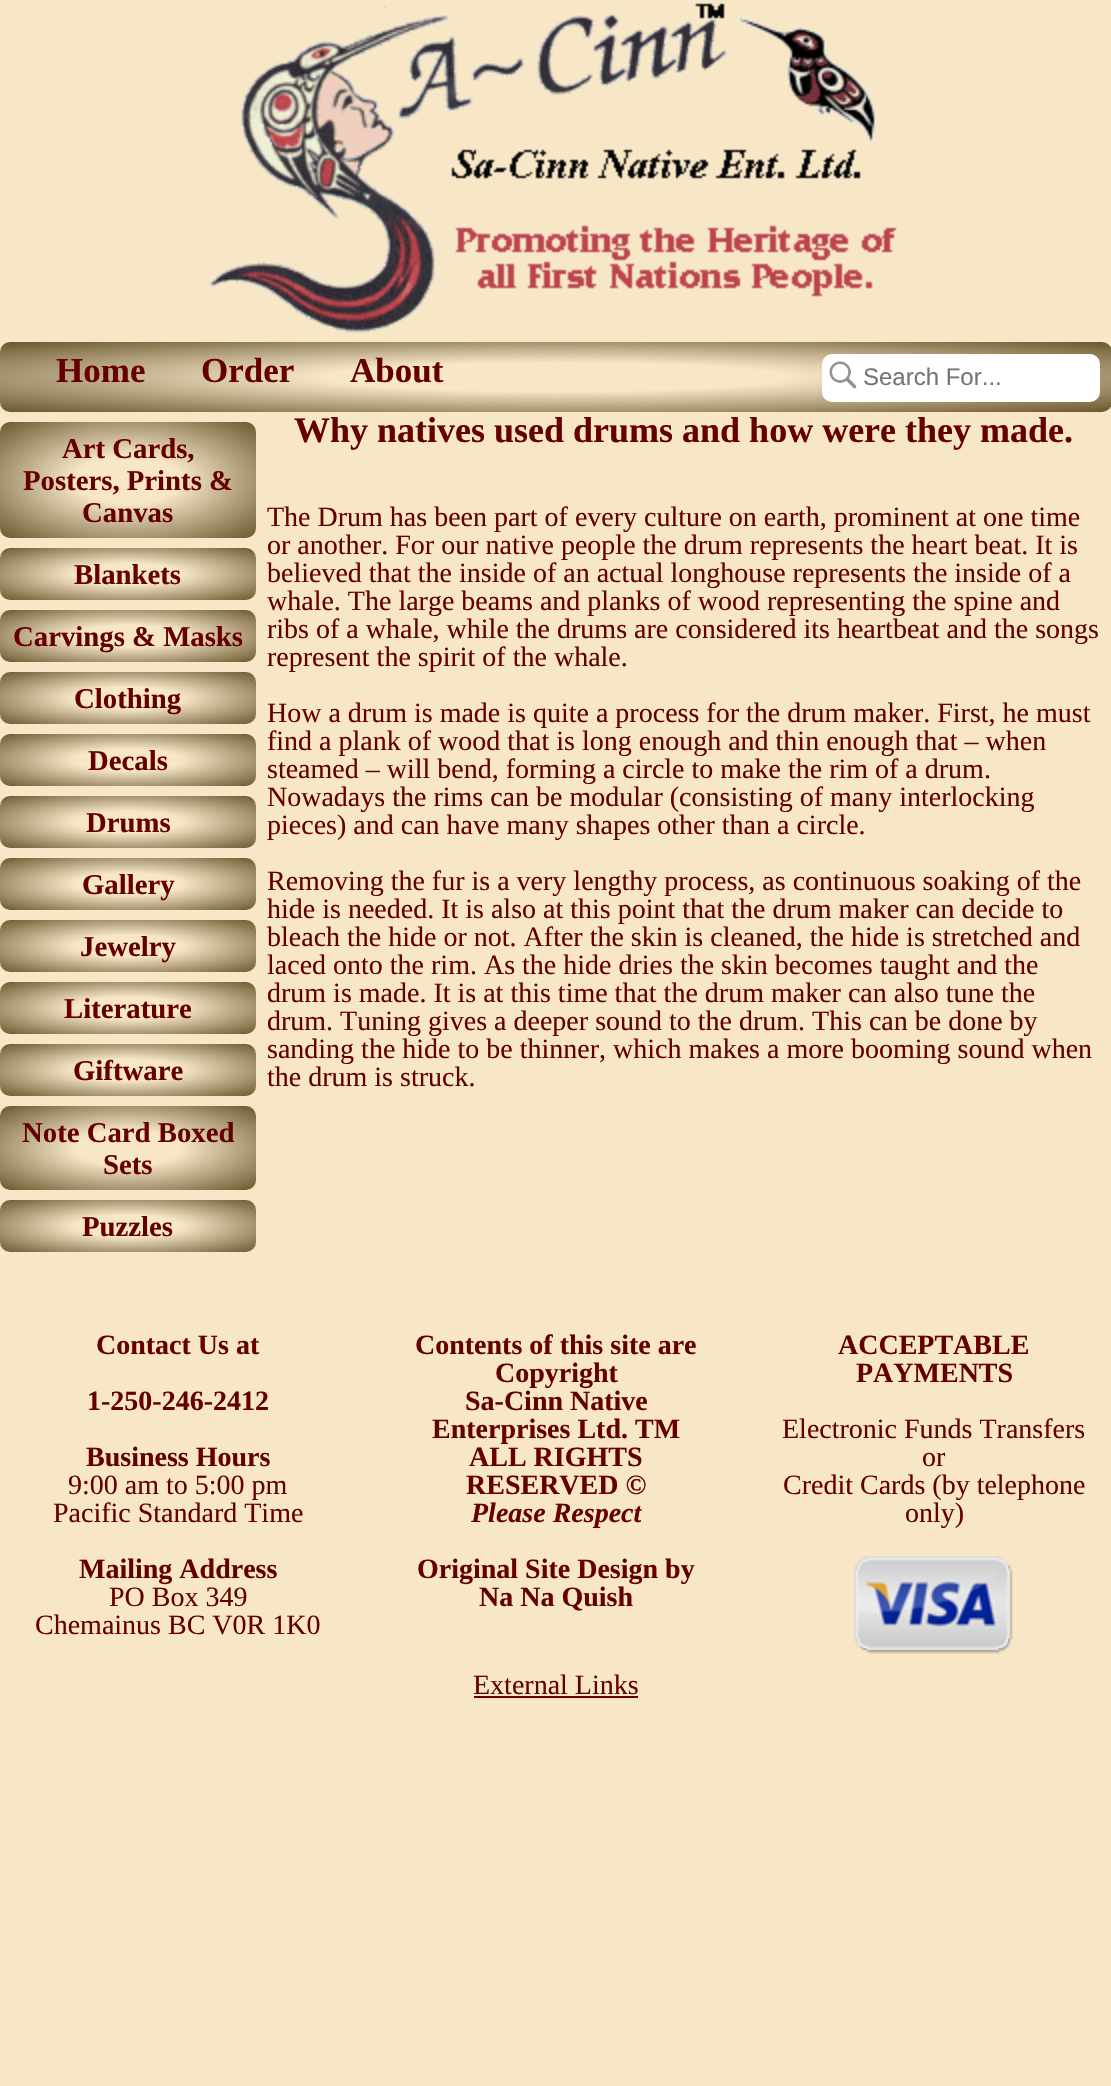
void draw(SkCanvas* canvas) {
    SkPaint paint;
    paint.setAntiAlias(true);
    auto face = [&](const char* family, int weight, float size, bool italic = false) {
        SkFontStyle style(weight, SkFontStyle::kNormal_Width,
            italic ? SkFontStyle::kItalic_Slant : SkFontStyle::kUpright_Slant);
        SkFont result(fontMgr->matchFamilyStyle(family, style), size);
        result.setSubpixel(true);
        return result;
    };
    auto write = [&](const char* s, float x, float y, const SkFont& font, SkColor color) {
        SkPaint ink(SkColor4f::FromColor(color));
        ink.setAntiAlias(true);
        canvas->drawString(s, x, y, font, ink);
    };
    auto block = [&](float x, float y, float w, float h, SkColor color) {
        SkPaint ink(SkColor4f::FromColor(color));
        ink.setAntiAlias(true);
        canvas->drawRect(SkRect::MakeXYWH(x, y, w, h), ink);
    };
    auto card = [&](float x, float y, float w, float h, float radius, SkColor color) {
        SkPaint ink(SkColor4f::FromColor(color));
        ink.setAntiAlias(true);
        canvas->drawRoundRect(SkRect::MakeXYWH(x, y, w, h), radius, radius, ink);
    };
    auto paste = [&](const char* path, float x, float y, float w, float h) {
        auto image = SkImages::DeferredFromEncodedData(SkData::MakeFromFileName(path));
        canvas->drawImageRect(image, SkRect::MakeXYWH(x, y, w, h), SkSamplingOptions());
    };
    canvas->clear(SkColorSetRGB(247, 231, 199));
    paste("pic1.png", 209, 3, 688, 330);
    {
        const SkColor colors[] = {SkColorSetRGB(247, 231, 199), SkColorSetRGB(107, 87, 47)};
        const float stops[] = {0.29f, 1};
        SkMatrix m = SkMatrix::Translate(556, 377).preScale(786, 49);
        paint.setShader(SkGradientShader::MakeRadial({0, 0}, 1, colors, stops, 2, SkTileMode::kClamp, 0, &m));
        paint.setAlpha(255);
    }
    canvas->drawRoundRect(SkRect::MakeXYWH(0, 342, 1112, 70), 10, 10, paint);
    auto kFont1 = face("Liberation Serif", 700, 35);
    write("Home", 56, 382, kFont1, SkColorSetRGB(102, 0, 0));
    write("Order", 201, 382, kFont1, SkColorSetRGB(102, 0, 0));
    write("About", 350, 382, kFont1, SkColorSetRGB(102, 0, 0));
    card(822, 354, 278, 48, 10, SK_ColorWHITE);
    paste("pic2.png", 829, 361, 28, 28);
    auto kFont2 = face("Liberation Sans", 400, 24);
    write("Search For...", 863, 385, kFont2, SkColorSetRGB(117, 117, 117));
    {
        const SkColor colors[] = {SkColorSetRGB(247, 231, 199), SkColorSetRGB(107, 87, 47)};
        const float stops[] = {0.29f, 1};
        SkMatrix m = SkMatrix::Translate(128, 480).preScale(181, 82);
        paint.setShader(SkGradientShader::MakeRadial({0, 0}, 1, colors, stops, 2, SkTileMode::kClamp, 0, &m));
        paint.setAlpha(255);
    }
    canvas->drawRoundRect(SkRect::MakeXYWH(0, 422, 256, 116), 10, 10, paint);
    auto kFont3 = face("Liberation Serif", 700, 28.75f);
    write("Art Cards,", 62, 458, kFont3, SkColorSetRGB(102, 0, 0));
    write("Posters, Prints &", 23, 490, kFont3, SkColorSetRGB(102, 0, 0));
    write("Canvas", 82, 522, kFont3, SkColorSetRGB(102, 0, 0));
    {
        const SkColor colors[] = {SkColorSetRGB(247, 231, 199), SkColorSetRGB(107, 87, 47)};
        const float stops[] = {0.29f, 1};
        SkMatrix m = SkMatrix::Translate(128, 574).preScale(181, 37);
        paint.setShader(SkGradientShader::MakeRadial({0, 0}, 1, colors, stops, 2, SkTileMode::kClamp, 0, &m));
        paint.setAlpha(255);
    }
    canvas->drawRoundRect(SkRect::MakeXYWH(0, 548, 256, 52), 10, 10, paint);
    write("Blankets", 74, 584, kFont3, SkColorSetRGB(102, 0, 0));
    {
        const SkColor colors[] = {SkColorSetRGB(247, 231, 199), SkColorSetRGB(107, 87, 47)};
        const float stops[] = {0.29f, 1};
        SkMatrix m = SkMatrix::Translate(128, 636).preScale(181, 37);
        paint.setShader(SkGradientShader::MakeRadial({0, 0}, 1, colors, stops, 2, SkTileMode::kClamp, 0, &m));
        paint.setAlpha(255);
    }
    canvas->drawRoundRect(SkRect::MakeXYWH(0, 610, 256, 52), 10, 10, paint);
    write("Carvings & Masks", 13, 646, kFont3, SkColorSetRGB(102, 0, 0));
    {
        const SkColor colors[] = {SkColorSetRGB(247, 231, 199), SkColorSetRGB(107, 87, 47)};
        const float stops[] = {0.29f, 1};
        SkMatrix m = SkMatrix::Translate(128, 698).preScale(181, 37);
        paint.setShader(SkGradientShader::MakeRadial({0, 0}, 1, colors, stops, 2, SkTileMode::kClamp, 0, &m));
        paint.setAlpha(255);
    }
    canvas->drawRoundRect(SkRect::MakeXYWH(0, 672, 256, 52), 10, 10, paint);
    write("Clothing", 74, 708, kFont3, SkColorSetRGB(102, 0, 0));
    {
        const SkColor colors[] = {SkColorSetRGB(247, 231, 199), SkColorSetRGB(107, 87, 47)};
        const float stops[] = {0.29f, 1};
        SkMatrix m = SkMatrix::Translate(128, 760).preScale(181, 37);
        paint.setShader(SkGradientShader::MakeRadial({0, 0}, 1, colors, stops, 2, SkTileMode::kClamp, 0, &m));
        paint.setAlpha(255);
    }
    canvas->drawRoundRect(SkRect::MakeXYWH(0, 734, 256, 52), 10, 10, paint);
    write("Decals", 88, 770, kFont3, SkColorSetRGB(102, 0, 0));
    {
        const SkColor colors[] = {SkColorSetRGB(247, 231, 199), SkColorSetRGB(107, 87, 47)};
        const float stops[] = {0.29f, 1};
        SkMatrix m = SkMatrix::Translate(128, 822).preScale(181, 37);
        paint.setShader(SkGradientShader::MakeRadial({0, 0}, 1, colors, stops, 2, SkTileMode::kClamp, 0, &m));
        paint.setAlpha(255);
    }
    canvas->drawRoundRect(SkRect::MakeXYWH(0, 796, 256, 52), 10, 10, paint);
    write("Drums", 86, 832, kFont3, SkColorSetRGB(102, 0, 0));
    {
        const SkColor colors[] = {SkColorSetRGB(247, 231, 199), SkColorSetRGB(107, 87, 47)};
        const float stops[] = {0.29f, 1};
        SkMatrix m = SkMatrix::Translate(128, 884).preScale(181, 37);
        paint.setShader(SkGradientShader::MakeRadial({0, 0}, 1, colors, stops, 2, SkTileMode::kClamp, 0, &m));
        paint.setAlpha(255);
    }
    canvas->drawRoundRect(SkRect::MakeXYWH(0, 858, 256, 52), 10, 10, paint);
    write("Gallery", 82, 894, kFont3, SkColorSetRGB(102, 0, 0));
    {
        const SkColor colors[] = {SkColorSetRGB(247, 231, 199), SkColorSetRGB(107, 87, 47)};
        const float stops[] = {0.29f, 1};
        SkMatrix m = SkMatrix::Translate(128, 946).preScale(181, 37);
        paint.setShader(SkGradientShader::MakeRadial({0, 0}, 1, colors, stops, 2, SkTileMode::kClamp, 0, &m));
        paint.setAlpha(255);
    }
    canvas->drawRoundRect(SkRect::MakeXYWH(0, 920, 256, 52), 10, 10, paint);
    write("Jewelry", 80, 956, kFont3, SkColorSetRGB(102, 0, 0));
    {
        const SkColor colors[] = {SkColorSetRGB(247, 231, 199), SkColorSetRGB(107, 87, 47)};
        const float stops[] = {0.29f, 1};
        SkMatrix m = SkMatrix::Translate(128, 1008).preScale(181, 37);
        paint.setShader(SkGradientShader::MakeRadial({0, 0}, 1, colors, stops, 2, SkTileMode::kClamp, 0, &m));
        paint.setAlpha(255);
    }
    canvas->drawRoundRect(SkRect::MakeXYWH(0, 982, 256, 52), 10, 10, paint);
    write("Literature", 64, 1018, kFont3, SkColorSetRGB(102, 0, 0));
    {
        const SkColor colors[] = {SkColorSetRGB(247, 231, 199), SkColorSetRGB(107, 87, 47)};
        const float stops[] = {0.29f, 1};
        SkMatrix m = SkMatrix::Translate(128, 1070).preScale(181, 37);
        paint.setShader(SkGradientShader::MakeRadial({0, 0}, 1, colors, stops, 2, SkTileMode::kClamp, 0, &m));
        paint.setAlpha(255);
    }
    canvas->drawRoundRect(SkRect::MakeXYWH(0, 1044, 256, 52), 10, 10, paint);
    write("Giftware", 73, 1080, kFont3, SkColorSetRGB(102, 0, 0));
    {
        const SkColor colors[] = {SkColorSetRGB(247, 231, 199), SkColorSetRGB(107, 87, 47)};
        const float stops[] = {0.29f, 1};
        SkMatrix m = SkMatrix::Translate(128, 1148).preScale(181, 59);
        paint.setShader(SkGradientShader::MakeRadial({0, 0}, 1, colors, stops, 2, SkTileMode::kClamp, 0, &m));
        paint.setAlpha(255);
    }
    canvas->drawRoundRect(SkRect::MakeXYWH(0, 1106, 256, 84), 10, 10, paint);
    write("Note Card Boxed", 22, 1142, kFont3, SkColorSetRGB(102, 0, 0));
    write("Sets", 103, 1174, kFont3, SkColorSetRGB(102, 0, 0));
    {
        const SkColor colors[] = {SkColorSetRGB(247, 231, 199), SkColorSetRGB(107, 87, 47)};
        const float stops[] = {0.29f, 1};
        SkMatrix m = SkMatrix::Translate(128, 1226).preScale(181, 37);
        paint.setShader(SkGradientShader::MakeRadial({0, 0}, 1, colors, stops, 2, SkTileMode::kClamp, 0, &m));
        paint.setAlpha(255);
    }
    canvas->drawRoundRect(SkRect::MakeXYWH(0, 1200, 256, 52), 10, 10, paint);
    write("Puzzles", 82, 1236, kFont3, SkColorSetRGB(102, 0, 0));
    auto kFont4 = face("Liberation Serif", 700, 36);
    write("Why natives used drums and how were they made.", 294, 442, kFont4, SkColorSetRGB(102, 0, 0));
    auto kFont5 = face("Liberation Serif", 400, 28);
    write("The Drum has been part of every culture on earth, prominent at one time", 267, 526, kFont5, SkColorSetRGB(102, 0, 0));
    write("or another. For our native people the drum represents the heart beat. It is", 267, 554, kFont5, SkColorSetRGB(102, 0, 0));
    write("believed that the inside of an actual longhouse represents the inside of a", 267, 582, kFont5, SkColorSetRGB(102, 0, 0));
    write("whale. The large beams and planks of wood representing the spine and", 267, 610, kFont5, SkColorSetRGB(102, 0, 0));
    write("ribs of a whale, while the drums are considered its heartbeat and the songs", 267, 638, kFont5, SkColorSetRGB(102, 0, 0));
    write("represent the spirit of the whale.", 267, 666, kFont5, SkColorSetRGB(102, 0, 0));
    write("How a drum is made is quite a process for the drum maker. First, he must", 267, 722, kFont5, SkColorSetRGB(102, 0, 0));
    write("find a plank of wood that is long enough and thin enough that – when", 267, 750, kFont5, SkColorSetRGB(102, 0, 0));
    write("steamed – will bend, forming a circle to make the rim of a drum.", 267, 778, kFont5, SkColorSetRGB(102, 0, 0));
    write("Nowadays the rims can be modular (consisting of many interlocking", 267, 806, kFont5, SkColorSetRGB(102, 0, 0));
    write("pieces) and can have many shapes other than a circle.", 267, 834, kFont5, SkColorSetRGB(102, 0, 0));
    write("Removing the fur is a very lengthy process, as continuous soaking of the", 267, 890, kFont5, SkColorSetRGB(102, 0, 0));
    write("hide is needed. It is also at this point that the drum maker can decide to", 267, 918, kFont5, SkColorSetRGB(102, 0, 0));
    write("bleach the hide or not. After the skin is cleaned, the hide is stretched and", 267, 946, kFont5, SkColorSetRGB(102, 0, 0));
    write("laced onto the rim. As the hide dries the skin becomes taught and the", 267, 974, kFont5, SkColorSetRGB(102, 0, 0));
    write("drum is made. It is at this time that the drum maker can also tune the", 267, 1002, kFont5, SkColorSetRGB(102, 0, 0));
    write("drum. Tuning gives a deeper sound to the drum. This can be done by", 267, 1030, kFont5, SkColorSetRGB(102, 0, 0));
    write("sanding the hide to be thinner, which makes a more booming sound when", 267, 1058, kFont5, SkColorSetRGB(102, 0, 0));
    write("the drum is struck.", 267, 1086, kFont5, SkColorSetRGB(102, 0, 0));
    auto kFont6 = face("Liberation Serif", 700, 28);
    write("Contact Us at", 96, 1354, kFont6, SkColorSetRGB(102, 0, 0));
    write("1-250-246-2412", 87, 1410, kFont6, SkColorSetRGB(102, 0, 0));
    write("Business Hours", 86, 1466, kFont6, SkColorSetRGB(102, 0, 0));
    write("9:00 am to 5:00 pm", 68, 1494, kFont5, SkColorSetRGB(102, 0, 0));
    write("Pacific Standard Time", 53, 1522, kFont5, SkColorSetRGB(102, 0, 0));
    write("Mailing Address", 79, 1578, kFont6, SkColorSetRGB(102, 0, 0));
    write("PO Box 349", 109, 1606, kFont5, SkColorSetRGB(102, 0, 0));
    write("Chemainus BC V0R 1K0", 35, 1634, kFont5, SkColorSetRGB(102, 0, 0));
    write("Contents of this site are", 415, 1354, kFont6, SkColorSetRGB(102, 0, 0));
    write("Copyright", 495, 1382, kFont6, SkColorSetRGB(102, 0, 0));
    write("Sa-Cinn Native", 465, 1410, kFont6, SkColorSetRGB(102, 0, 0));
    write("Enterprises Ltd. TM", 432, 1438, kFont6, SkColorSetRGB(102, 0, 0));
    write("ALL RIGHTS", 469, 1466, kFont6, SkColorSetRGB(102, 0, 0));
    write("RESERVED ©", 466, 1494, kFont6, SkColorSetRGB(102, 0, 0));
    auto kFont7 = face("Liberation Serif", 700, 28, true);
    write("Please Respect", 471, 1522, kFont7, SkColorSetRGB(102, 0, 0));
    write("Original Site Design by", 417, 1578, kFont6, SkColorSetRGB(102, 0, 0));
    write("Na Na Quish", 479, 1606, kFont6, SkColorSetRGB(102, 0, 0));
    write("External Links", 473, 1694, kFont5, SkColorSetRGB(102, 0, 0));
    block(474, 1696, 164, 2, SkColorSetRGB(102, 0, 0));
    write("ACCEPTABLE", 838, 1354, kFont6, SkColorSetRGB(102, 0, 0));
    write("PAYMENTS", 856, 1382, kFont6, SkColorSetRGB(102, 0, 0));
    write("Electronic Funds Transfers", 782, 1438, kFont5, SkColorSetRGB(102, 0, 0));
    write("or", 922, 1466, kFont5, SkColorSetRGB(102, 0, 0));
    write("Credit Cards (by telephone", 783, 1494, kFont5, SkColorSetRGB(102, 0, 0));
    write("only)", 905, 1522, kFont5, SkColorSetRGB(102, 0, 0));
    paste("pic3.png", 854, 1556, 159, 98);
}
